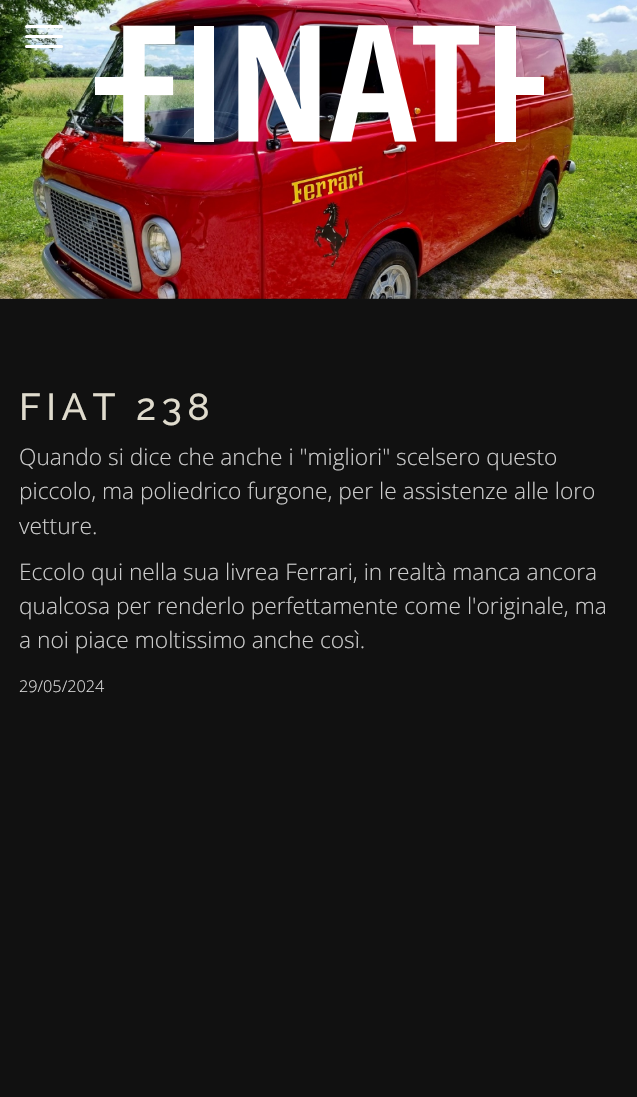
void draw(SkCanvas* canvas) {
    SkPaint paint;
    paint.setAntiAlias(true);
    auto face = [&](const char* family, int weight, float size, bool italic = false) {
        SkFontStyle style(weight, SkFontStyle::kNormal_Width,
            italic ? SkFontStyle::kItalic_Slant : SkFontStyle::kUpright_Slant);
        SkFont result(fontMgr->matchFamilyStyle(family, style), size);
        result.setSubpixel(true);
        return result;
    };
    auto write = [&](const char* s, float x, float y, const SkFont& font, SkColor color) {
        SkPaint ink(SkColor4f::FromColor(color));
        ink.setAntiAlias(true);
        canvas->drawString(s, x, y, font, ink);
    };
    auto writeSpaced = [&](const char* s, float x, float y, const SkFont& font, const SkPaint& ink, float letter, float word) {
        std::vector<SkGlyphID> glyphs(font.countText(s, strlen(s), SkTextEncoding::kUTF8));
        std::vector<float> xs(glyphs.size());
        font.textToGlyphs(s, strlen(s), SkTextEncoding::kUTF8, glyphs);
        font.getXPos(glyphs, xs, x);
        float extra = 0;
        for (size_t i = 0; i < glyphs.size(); i++) {
            xs[i] += extra;
            extra += letter + word * (glyphs[i] == font.unicharToGlyph(' '));
        }
        canvas->drawTextBlob(SkTextBlob::MakeFromPosHGlyphs(glyphs, xs, y, font), 0, 0, ink);
    };
    auto card = [&](float x, float y, float w, float h, float radius, SkColor color) {
        SkPaint ink(SkColor4f::FromColor(color));
        ink.setAntiAlias(true);
        canvas->drawRoundRect(SkRect::MakeXYWH(x, y, w, h), radius, radius, ink);
    };
    auto paste = [&](const char* path, float x, float y, float w, float h) {
        auto image = SkImages::DeferredFromEncodedData(SkData::MakeFromFileName(path));
        canvas->drawImageRect(image, SkRect::MakeXYWH(x, y, w, h), SkSamplingOptions());
    };
    canvas->clear(SkColorSetRGB(17, 17, 17));
    paste("pic2.png", 0, 0, 637, 299);
    card(25, 25, 38, 3, 1.5f, SK_ColorWHITE);
    card(25, 35, 38, 3, 1.5f, SK_ColorWHITE);
    card(25, 45, 38, 3, 1.5f, SK_ColorWHITE);
    paste("pic1.png", 95, 25, 449, 117);
    auto kFont1 = face("Raleway", 500, 37.5f);
    paint.setColor(SkColorSetRGB(223, 219, 205));
    writeSpaced("FIAT 238", 19, 420, kFont1, paint, 5.5f, 0);
    auto kFont2 = face("Open Sans", 300, 22.75f);
    write("Quando si dice che anche i \"migliori\" scelsero questo", 19, 465, kFont2, SkColorSetRGB(204, 204, 204));
    write("piccolo, ma poliedrico furgone, per le assistenze alle loro", 19, 499, kFont2, SkColorSetRGB(204, 204, 204));
    write("vetture.", 19, 534, kFont2, SkColorSetRGB(204, 204, 204));
    write("Eccolo qui nella sua livrea Ferrari, in realtà manca ancora", 19, 580, kFont2, SkColorSetRGB(204, 204, 204));
    write("qualcosa per renderlo perfettamente come l'originale, ma", 19, 614, kFont2, SkColorSetRGB(204, 204, 204));
    write("a noi piace moltissimo anche così.", 19, 648, kFont2, SkColorSetRGB(204, 204, 204));
    auto kFont3 = face("Open Sans", 300, 16.25f);
    write("29/05/2024", 19, 692, kFont3, SkColorSetRGB(221, 221, 221));
}
